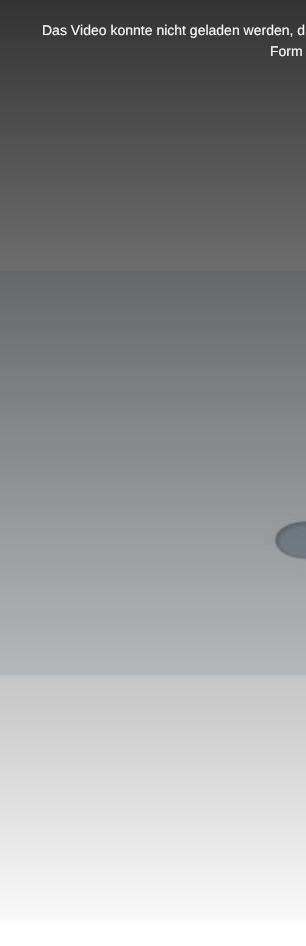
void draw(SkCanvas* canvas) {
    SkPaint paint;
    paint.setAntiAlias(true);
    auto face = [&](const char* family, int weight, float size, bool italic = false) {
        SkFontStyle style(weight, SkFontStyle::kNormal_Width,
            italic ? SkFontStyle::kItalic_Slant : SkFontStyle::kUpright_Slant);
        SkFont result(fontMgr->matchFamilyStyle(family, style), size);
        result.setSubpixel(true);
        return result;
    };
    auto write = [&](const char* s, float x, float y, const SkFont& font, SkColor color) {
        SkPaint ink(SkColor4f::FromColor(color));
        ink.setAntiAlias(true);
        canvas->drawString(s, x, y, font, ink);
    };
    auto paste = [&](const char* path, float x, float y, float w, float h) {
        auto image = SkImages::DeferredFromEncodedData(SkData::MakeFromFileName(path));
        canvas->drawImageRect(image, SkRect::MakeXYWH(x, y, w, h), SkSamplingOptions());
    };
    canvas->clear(SK_ColorWHITE);
    paste("pic1.png", 0, 271, 306, 404);
    {
        const SkColor colors[] = {SkColorSetARGB(204, 0, 0, 0), SkColorSetARGB(0, 0, 0, 0)};
        const float stops[] = {0, 1};
        const SkPoint ends[] = {{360, 0}, {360, 946}};
        paint.setShader(SkGradientShader::MakeLinear(ends, colors, stops, 2, SkTileMode::kClamp));
        paint.setAlpha(255);
    }
    canvas->drawRect(SkRect::MakeXYWH(0, 0, 306, 921), paint);
    auto kFont1 = face("Liberation Sans", 400, 14);
    write("Das Video konnte nicht geladen werden, d", 42, 35, kFont1, SK_ColorWHITE);
    write("Form", 270, 56, kFont1, SK_ColorWHITE);
}
